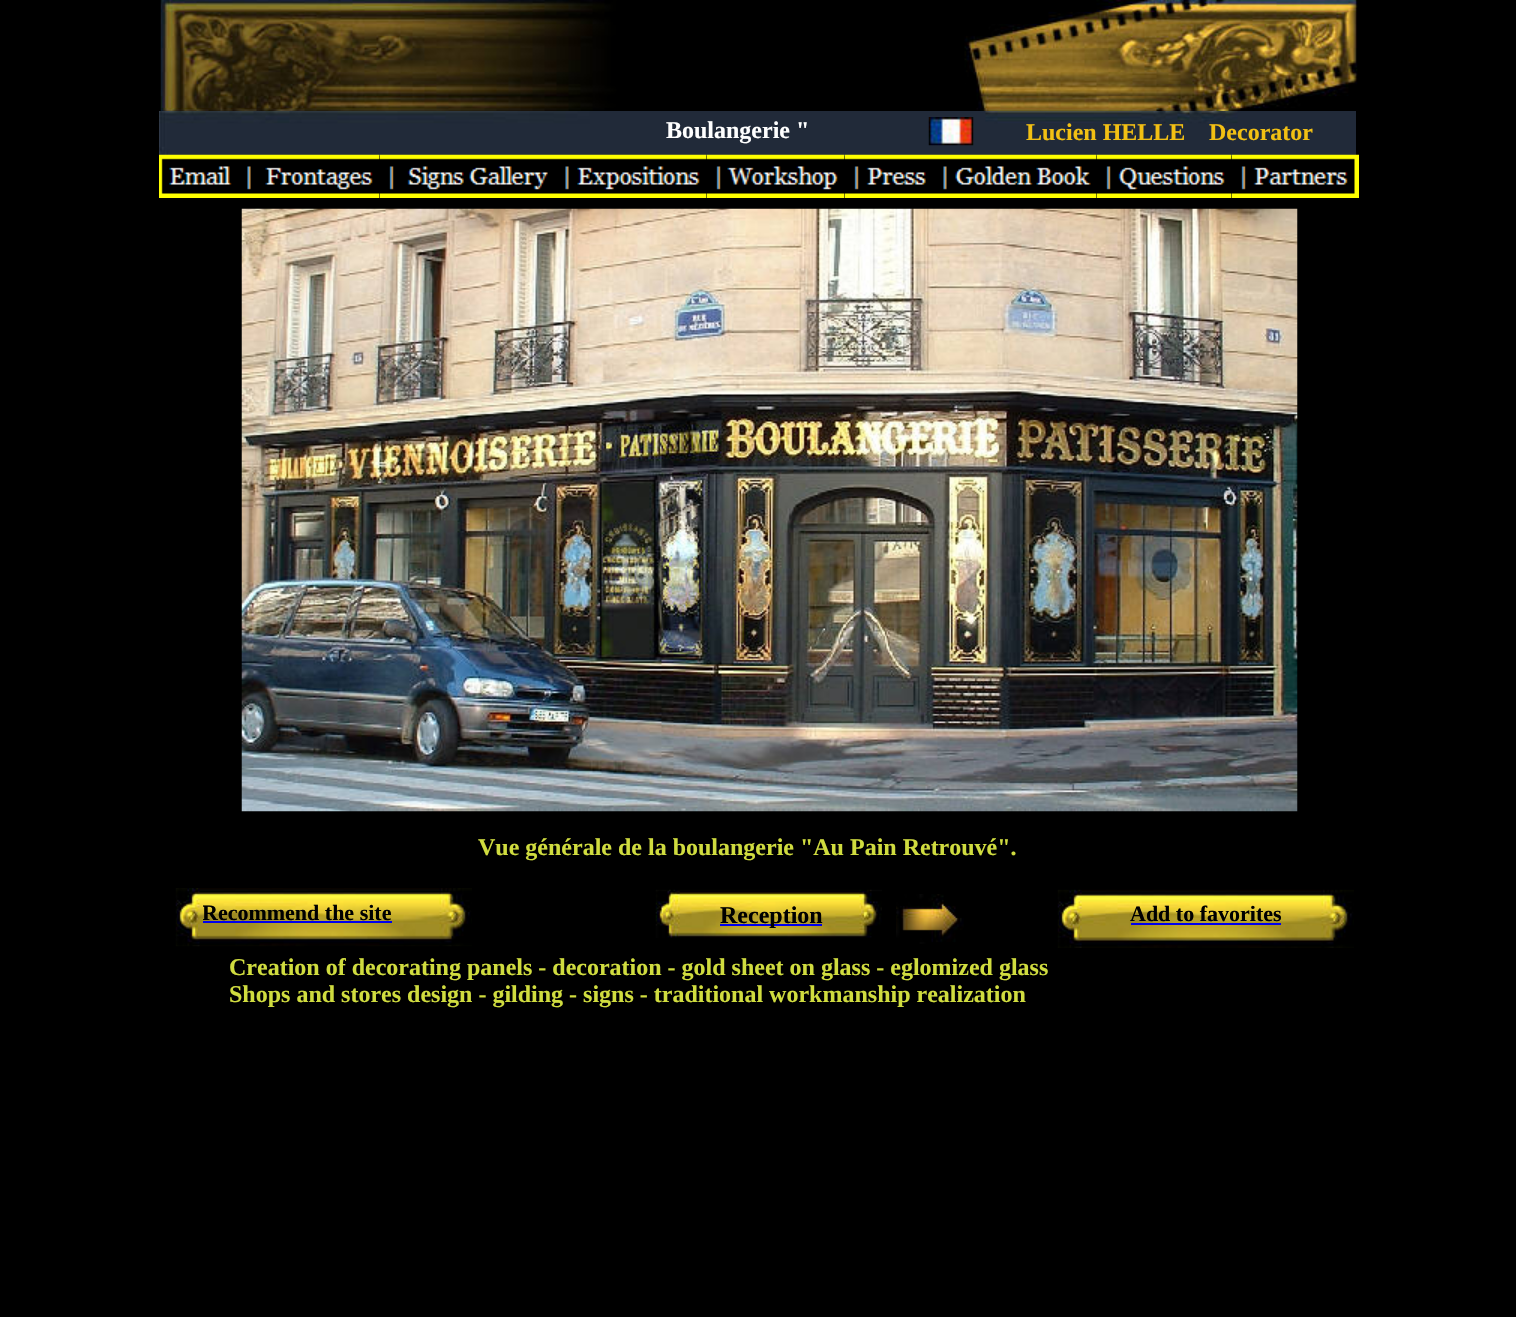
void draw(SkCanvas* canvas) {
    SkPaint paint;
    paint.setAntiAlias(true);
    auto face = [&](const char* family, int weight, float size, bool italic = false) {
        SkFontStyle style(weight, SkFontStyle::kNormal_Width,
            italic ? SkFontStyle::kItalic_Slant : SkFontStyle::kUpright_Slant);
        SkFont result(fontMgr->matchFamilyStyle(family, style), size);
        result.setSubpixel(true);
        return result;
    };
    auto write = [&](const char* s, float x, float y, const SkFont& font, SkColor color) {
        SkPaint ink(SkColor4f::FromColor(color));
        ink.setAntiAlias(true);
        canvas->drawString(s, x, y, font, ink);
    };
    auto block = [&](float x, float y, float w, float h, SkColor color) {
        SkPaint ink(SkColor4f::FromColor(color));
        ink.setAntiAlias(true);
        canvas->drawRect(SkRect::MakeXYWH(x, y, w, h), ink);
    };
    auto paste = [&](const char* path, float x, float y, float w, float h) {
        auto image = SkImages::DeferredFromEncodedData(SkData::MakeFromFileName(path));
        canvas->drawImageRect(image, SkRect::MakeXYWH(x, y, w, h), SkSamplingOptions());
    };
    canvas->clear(SK_ColorBLACK);
    paste("pic1.png", 160, 0, 1198, 120);
    paste("pic2.png", 159, 111, 1197, 45);
    auto kFont1 = face("Liberation Serif", 700, 24);
    write("Boulangerie \"", 666, 138, kFont1, SK_ColorWHITE);
    paste("pic3.png", 928, 117, 46, 29);
    write("Lucien HELLE", 1026, 140, kFont1, SkColorSetRGB(242, 192, 19));
    write("Decorator", 1209, 140, kFont1, SkColorSetRGB(242, 192, 19));
    paste("pic4.png", 159, 154, 78, 44);
    paste("pic5.png", 237, 154, 143, 44);
    paste("pic6.png", 379, 154, 176, 44);
    paste("pic7.png", 555, 154, 152, 44);
    paste("pic8.png", 706, 154, 139, 44);
    paste("pic9.png", 844, 154, 89, 44);
    paste("pic10.png", 933, 154, 164, 44);
    paste("pic11.png", 1096, 154, 136, 44);
    paste("pic12.png", 1231, 154, 128, 44);
    paste("pic13.png", 241, 208, 1057, 604);
    write("Vue générale de la boulangerie \"Au Pain Retrouvé\".", 478, 855, kFont1, SkColorSetRGB(208, 220, 63));
    paste("pic14.png", 175, 888, 297, 59);
    paste("pic15.png", 655, 889, 227, 49);
    paste("pic16.png", 896, 894, 68, 50);
    paste("pic17.png", 1057, 889, 297, 59);
    canvas->save();
    canvas->clipRect(SkRect::MakeXYWH(203, 900, 277, 38));
    auto kFont2 = face("Liberation Serif", 700, 22);
    write("Recommend the site", 202, 920, kFont2, SK_ColorBLACK);
    canvas->restore();
    block(203, 921, 189, 2, SkColorSetRGB(0, 0, 238));
    block(720, 924, 102, 2, SkColorSetRGB(0, 0, 238));
    write("Reception", 720, 923, kFont1, SK_ColorBLACK);
    write("Add to favorites", 1130, 921, kFont2, SK_ColorBLACK);
    block(1131, 923, 150, 2, SkColorSetRGB(0, 0, 238));
    write("Creation of decorating panels - decoration - gold sheet on glass - eglomized glass", 229, 975, kFont1, SkColorSetRGB(208, 220, 63));
    write("Shops and stores design - gilding - signs - traditional workmanship realization", 229, 1002, kFont1, SkColorSetRGB(208, 220, 63));
}
